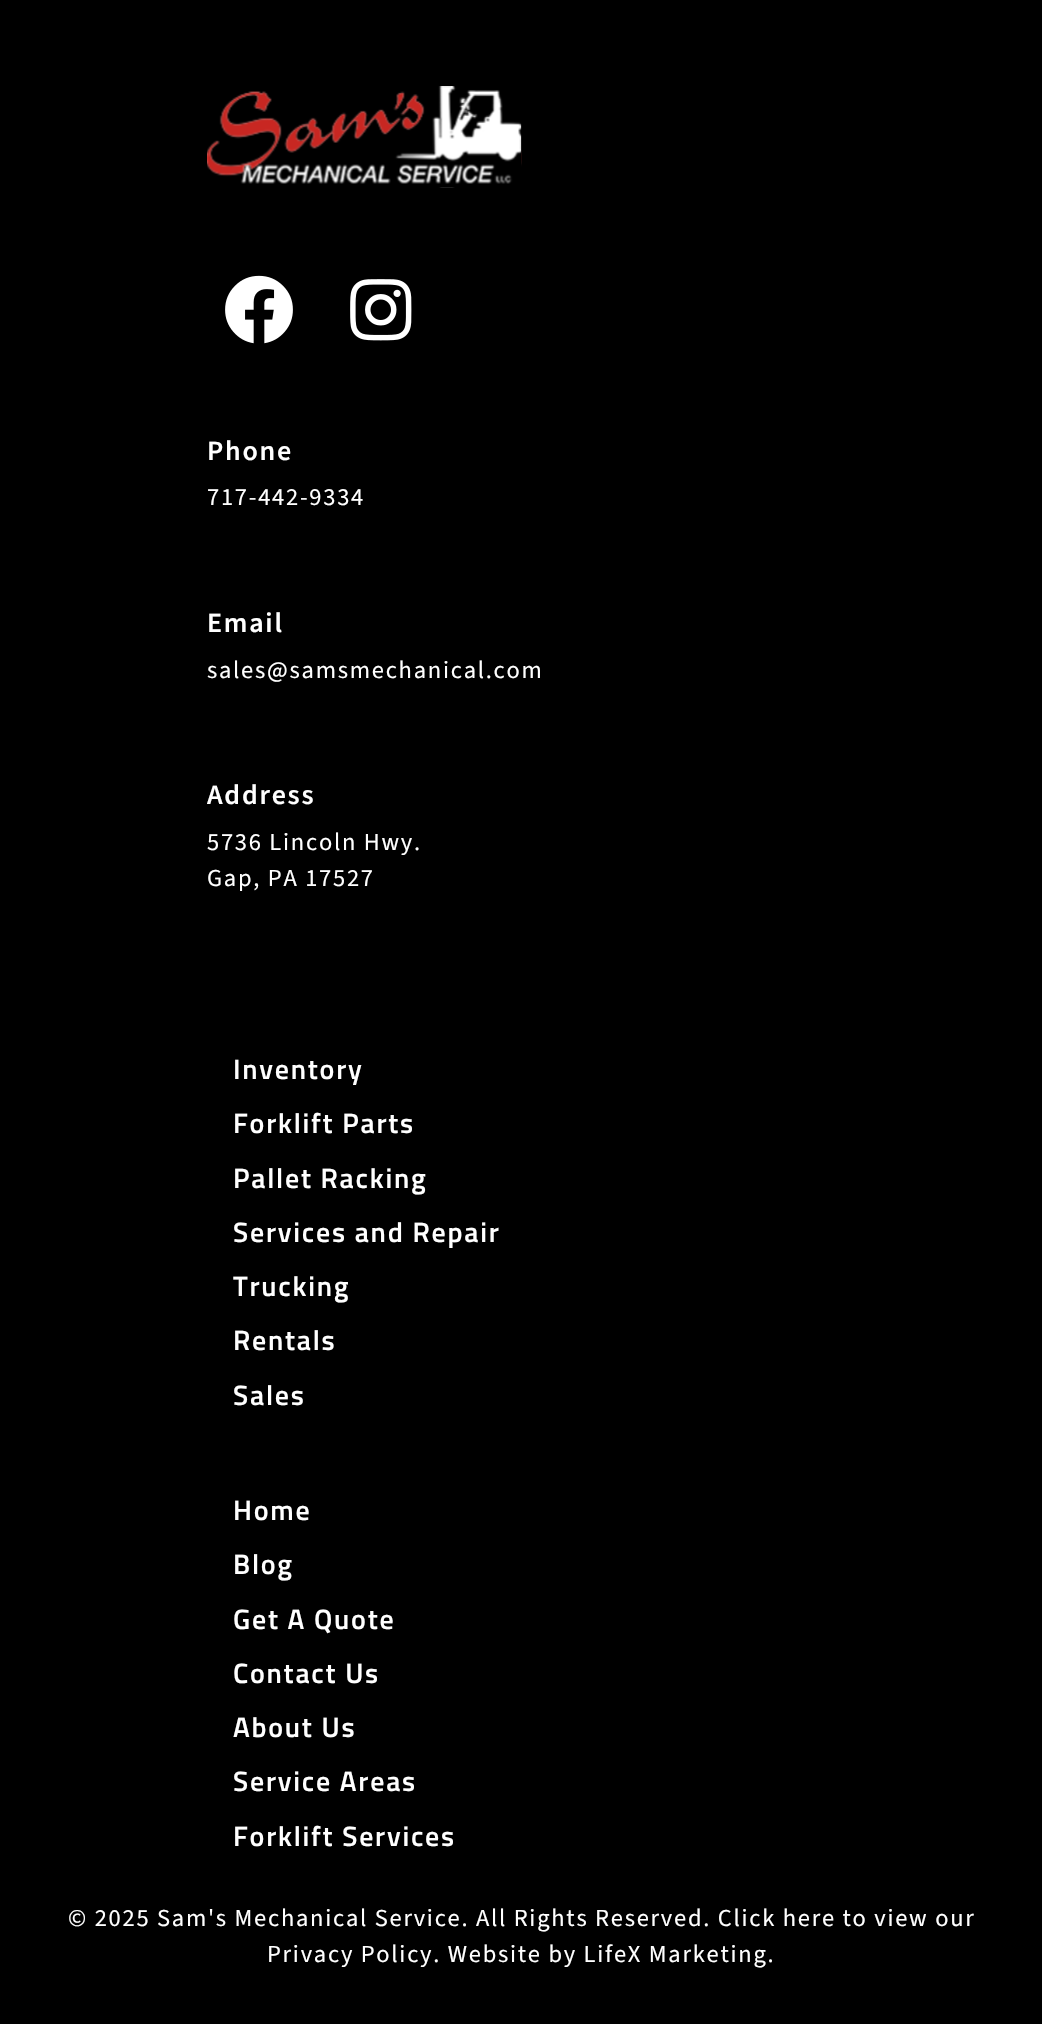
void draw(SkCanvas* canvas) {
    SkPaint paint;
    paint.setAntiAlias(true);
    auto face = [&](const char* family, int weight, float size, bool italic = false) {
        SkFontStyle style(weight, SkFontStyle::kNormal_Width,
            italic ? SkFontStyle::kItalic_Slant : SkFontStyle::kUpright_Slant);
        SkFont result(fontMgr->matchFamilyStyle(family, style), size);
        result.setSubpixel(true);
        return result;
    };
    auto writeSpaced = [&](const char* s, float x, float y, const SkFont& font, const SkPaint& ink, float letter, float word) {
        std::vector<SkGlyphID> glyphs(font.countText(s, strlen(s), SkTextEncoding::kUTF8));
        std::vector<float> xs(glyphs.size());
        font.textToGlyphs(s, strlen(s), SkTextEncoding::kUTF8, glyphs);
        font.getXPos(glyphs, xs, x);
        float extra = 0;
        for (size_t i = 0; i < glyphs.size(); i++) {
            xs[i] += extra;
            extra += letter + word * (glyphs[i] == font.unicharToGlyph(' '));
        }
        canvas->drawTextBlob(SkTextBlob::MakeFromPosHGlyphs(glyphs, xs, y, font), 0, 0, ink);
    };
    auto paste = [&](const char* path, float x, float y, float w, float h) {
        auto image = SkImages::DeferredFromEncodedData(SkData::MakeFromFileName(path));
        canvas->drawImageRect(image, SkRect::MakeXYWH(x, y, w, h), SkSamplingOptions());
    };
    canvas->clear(SK_ColorBLACK);
    paste("pic1.png", 207, 86, 315, 102);
    paste("pic2.png", 225, 275, 68, 69);
    paste("pic3.png", 350, 279, 62, 62);
    auto kFont1 = face("Source Sans 3", 600, 28);
    paint.setColor(SK_ColorWHITE);
    writeSpaced("Phone", 207, 460, kFont1, paint, 1.75f, 0);
    auto kFont2 = face("Source Sans 3", 400, 24.5f);
    writeSpaced("717-442-9334", 207, 505, kFont2, paint, 1.75f, 0);
    writeSpaced("Email", 207, 632, kFont1, paint, 1.75f, 0);
    writeSpaced("sales@samsmechanical.com", 207, 678, kFont2, paint, 1.75f, 0);
    writeSpaced("Address", 207, 804, kFont1, paint, 1.75f, 0);
    writeSpaced("5736 Lincoln Hwy.", 207, 850, kFont2, paint, 1.75f, 0);
    writeSpaced("Gap, PA 17527", 207, 886, kFont2, paint, 1.75f, 0);
    auto kFont3 = face("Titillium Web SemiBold", 600, 28);
    writeSpaced("Inventory", 233, 1079, kFont3, paint, 1.75f, 0);
    writeSpaced("Forklift Parts", 233, 1133, kFont3, paint, 1.75f, 0);
    writeSpaced("Pallet Racking", 233, 1188, kFont3, paint, 1.75f, 0);
    writeSpaced("Services and Repair", 233, 1242, kFont3, paint, 1.75f, 0);
    writeSpaced("Trucking", 233, 1296, kFont3, paint, 1.75f, 0);
    writeSpaced("Rentals", 233, 1350, kFont3, paint, 1.75f, 0);
    writeSpaced("Sales", 233, 1405, kFont3, paint, 1.75f, 0);
    writeSpaced("Home", 233, 1520, kFont3, paint, 1.75f, 0);
    writeSpaced("Blog", 233, 1574, kFont3, paint, 1.75f, 0);
    writeSpaced("Get A Quote", 233, 1629, kFont3, paint, 1.75f, 0);
    writeSpaced("Contact Us", 233, 1683, kFont3, paint, 1.75f, 0);
    writeSpaced("About Us", 233, 1737, kFont3, paint, 1.75f, 0);
    writeSpaced("Service Areas", 233, 1791, kFont3, paint, 1.75f, 0);
    writeSpaced("Forklift Services", 233, 1846, kFont3, paint, 1.75f, 0);
    writeSpaced("© 2025 Sam's Mechanical Service. All Rights Reserved. Click here to view our", 68, 1926, kFont2, paint, 1.75f, 0);
    writeSpaced("Privacy Policy. Website by LifeX Marketing.", 267, 1962, kFont2, paint, 1.75f, 0);
}
